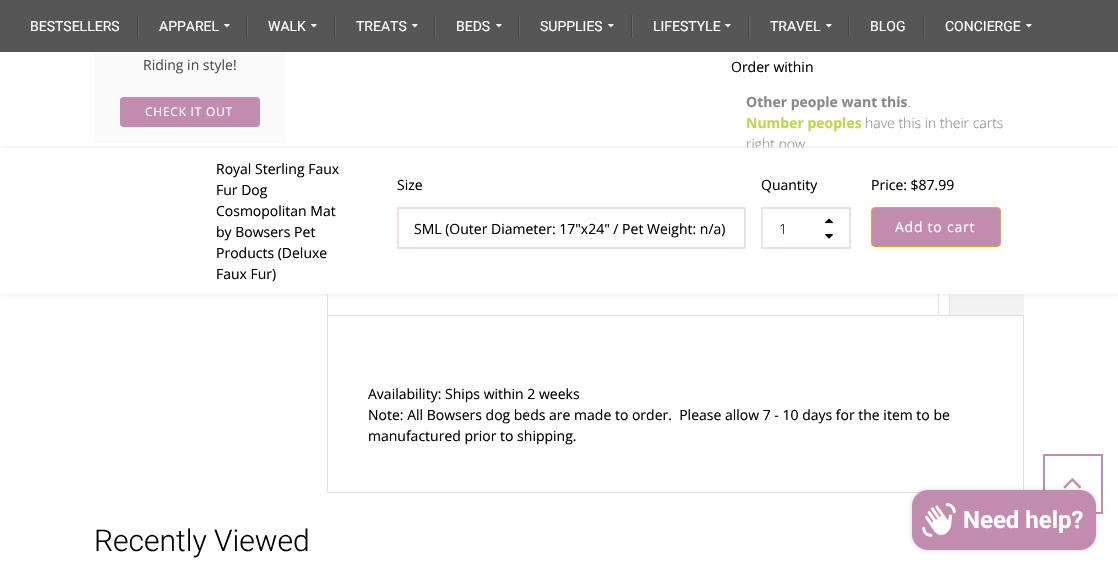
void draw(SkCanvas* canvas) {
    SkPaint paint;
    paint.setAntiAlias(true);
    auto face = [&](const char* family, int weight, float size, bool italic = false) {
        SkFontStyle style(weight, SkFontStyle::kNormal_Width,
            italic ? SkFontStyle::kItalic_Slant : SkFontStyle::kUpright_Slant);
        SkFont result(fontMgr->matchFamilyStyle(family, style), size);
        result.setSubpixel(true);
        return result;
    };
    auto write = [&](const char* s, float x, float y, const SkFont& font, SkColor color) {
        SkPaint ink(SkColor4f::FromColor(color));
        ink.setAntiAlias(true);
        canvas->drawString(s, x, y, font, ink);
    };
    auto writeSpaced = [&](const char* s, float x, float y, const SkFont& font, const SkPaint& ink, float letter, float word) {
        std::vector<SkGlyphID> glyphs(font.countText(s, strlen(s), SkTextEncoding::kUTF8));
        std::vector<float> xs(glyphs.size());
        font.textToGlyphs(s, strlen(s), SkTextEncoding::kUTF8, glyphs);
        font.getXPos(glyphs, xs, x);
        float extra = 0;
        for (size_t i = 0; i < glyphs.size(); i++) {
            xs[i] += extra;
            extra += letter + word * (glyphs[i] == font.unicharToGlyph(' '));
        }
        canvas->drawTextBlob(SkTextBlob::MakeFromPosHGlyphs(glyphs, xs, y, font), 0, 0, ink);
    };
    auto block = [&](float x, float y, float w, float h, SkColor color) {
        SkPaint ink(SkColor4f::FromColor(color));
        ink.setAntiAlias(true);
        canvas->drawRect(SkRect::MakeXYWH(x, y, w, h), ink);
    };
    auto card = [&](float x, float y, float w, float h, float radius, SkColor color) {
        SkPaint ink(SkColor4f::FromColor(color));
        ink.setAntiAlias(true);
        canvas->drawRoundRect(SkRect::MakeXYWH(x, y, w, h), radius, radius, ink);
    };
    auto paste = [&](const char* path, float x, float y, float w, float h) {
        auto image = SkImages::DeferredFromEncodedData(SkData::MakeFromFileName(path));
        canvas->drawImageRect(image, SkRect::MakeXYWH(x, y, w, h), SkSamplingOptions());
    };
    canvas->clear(SK_ColorWHITE);
    block(0, 0, 1118, 52, SkColorSetRGB(86, 86, 86));
    auto kFont1 = face("Roboto", 400, 14);
    write("BESTSELLERS", 30, 31, kFont1, SK_ColorWHITE);
    block(137, 15, 1, 23, SkColorSetRGB(69, 69, 69));
    block(138, 15, 1, 23, SkColorSetRGB(103, 103, 103));
    write("APPAREL", 159, 31, kFont1, SK_ColorWHITE);
    paste("pic1.png", 224, 24, 6, 4);
    block(246, 15, 1, 23, SkColorSetRGB(69, 69, 69));
    block(247, 15, 1, 23, SkColorSetRGB(103, 103, 103));
    write("WALK", 268, 31, kFont1, SK_ColorWHITE);
    paste("pic1.png", 311, 24, 6, 4);
    block(334, 15, 1, 23, SkColorSetRGB(69, 69, 69));
    block(335, 15, 1, 23, SkColorSetRGB(103, 103, 103));
    write("TREATS", 356, 31, kFont1, SK_ColorWHITE);
    paste("pic1.png", 412, 24, 6, 4);
    block(434, 15, 1, 23, SkColorSetRGB(69, 69, 69));
    block(435, 15, 1, 23, SkColorSetRGB(103, 103, 103));
    write("BEDS", 456, 31, kFont1, SK_ColorWHITE);
    paste("pic1.png", 496, 24, 6, 4);
    block(518, 15, 1, 23, SkColorSetRGB(69, 69, 69));
    block(519, 15, 1, 23, SkColorSetRGB(103, 103, 103));
    write("SUPPLIES", 540, 31, kFont1, SK_ColorWHITE);
    paste("pic1.png", 608, 24, 6, 4);
    block(631, 15, 1, 23, SkColorSetRGB(69, 69, 69));
    block(632, 15, 1, 23, SkColorSetRGB(103, 103, 103));
    write("LIFESTYLE", 653, 31, kFont1, SK_ColorWHITE);
    paste("pic1.png", 725, 24, 6, 4);
    block(748, 15, 1, 23, SkColorSetRGB(69, 69, 69));
    block(749, 15, 1, 23, SkColorSetRGB(103, 103, 103));
    write("TRAVEL", 770, 31, kFont1, SK_ColorWHITE);
    paste("pic1.png", 826, 24, 6, 4);
    block(848, 15, 1, 23, SkColorSetRGB(69, 69, 69));
    block(849, 15, 1, 23, SkColorSetRGB(103, 103, 103));
    write("BLOG", 870, 31, kFont1, SK_ColorWHITE);
    block(923, 15, 1, 23, SkColorSetRGB(69, 69, 69));
    block(924, 15, 1, 23, SkColorSetRGB(103, 103, 103));
    write("CONCIERGE", 945, 31, kFont1, SK_ColorWHITE);
    paste("pic1.png", 1026, 24, 6, 4);
    block(94, 52, 191, 91, SkColorSetRGB(250, 250, 250));
    auto kFont2 = face("Open Sans", 400, 14);
    write("Riding in style!", 143, 70, kFont2, SkColorSetRGB(79, 79, 79));
    card(120, 97, 140, 30, 4, SkColorSetRGB(194, 140, 174));
    paint.setStyle(SkPaint::kStroke_Style);
    paint.setStrokeWidth(1);
    paint.setColor(SkColorSetARGB(102, 194, 140, 174));
    canvas->drawRoundRect(SkRect::MakeXYWH(120.5f, 97.5f, 139, 29), 3.5f, 3.5f, paint);
    auto kFont3 = face("Open Sans", 400, 12);
    paint.setStyle(SkPaint::kFill_Style);
    paint.setColor(SK_ColorWHITE);
    writeSpaced("CHECK IT OUT", 145, 116, kFont3, paint, 0.75f, 0);
    write("Order within", 731, 72, kFont2, SK_ColorBLACK);
    auto kFont4 = face("Open Sans", 700, 14);
    write("Other people want this", 746, 107, kFont4, SkColorSetRGB(136, 136, 136));
    auto kFont5 = face("Open Sans", 300, 14);
    write(".", 908, 107, kFont5, SkColorSetRGB(136, 136, 136));
    write("Number peoples", 746, 128, kFont4, SkColorSetRGB(194, 212, 78));
    write("have this in their carts", 865, 128, kFont5, SkColorSetRGB(136, 136, 136));
    write("right now", 746, 149, kFont5, SkColorSetRGB(136, 136, 136));
    block(938, 294, 1, 21, SkColorSetRGB(225, 225, 225));
    block(327, 294, 1, 21, SkColorSetRGB(225, 225, 225));
    block(950, 294, 74, 21, SkColorSetRGB(242, 242, 243));
    paint.setStyle(SkPaint::kStroke_Style);
    paint.setColor(SkColorSetRGB(225, 225, 225));
    canvas->drawRect(SkRect::MakeXYWH(327.5f, 315.5f, 696, 177), paint);
    canvas->save();
    canvas->clipRect(SkRect::MakeXYWH(327, 262, 697, 53));
    canvas->drawRect(SkRect::MakeXYWH(949.5f, 263.5f, 153, 52), paint);
    canvas->restore();
    write("Availability: Ships within 2 weeks", 368, 399, kFont2, SK_ColorBLACK);
    write("Note: All Bowsers dog beds are made to order.  Please allow 7 - 10 days for the item to be", 368, 420, kFont2, SK_ColorBLACK);
    write("manufactured prior to shipping.", 368, 441, kFont2, SK_ColorBLACK);
    auto kFont6 = face("Roboto", 300, 30);
    write("Recently Viewed", 94, 551, kFont6, SK_ColorBLACK);
    paint.setStyle(SkPaint::kFill_Style);
    paint.setMaskFilter(SkMaskFilter::MakeBlur(kNormal_SkBlurStyle, 2));
    canvas->drawRect(SkRect::MakeXYWH(0, 148, 1118, 146), paint);
    paint.setMaskFilter(nullptr);
    block(0, 148, 1118, 146, SK_ColorWHITE);
    write("Royal Sterling Faux", 216, 174, kFont2, SK_ColorBLACK);
    write("Fur Dog", 216, 195, kFont2, SK_ColorBLACK);
    write("Cosmopolitan Mat", 216, 216, kFont2, SK_ColorBLACK);
    write("by Bowsers Pet", 216, 237, kFont2, SK_ColorBLACK);
    write("Products (Deluxe", 216, 258, kFont2, SK_ColorBLACK);
    write("Faux Fur)", 216, 279, kFont2, SK_ColorBLACK);
    write("Size", 397, 190, kFont2, SK_ColorBLACK);
    paint.setStyle(SkPaint::kStroke_Style);
    paint.setStrokeWidth(2);
    paint.setColor(SkColorSetRGB(237, 221, 231));
    canvas->drawRect(SkRect::MakeXYWH(398, 208, 347, 40), paint);
    write("SML (Outer Diameter: 17\"x24\" / Pet Weight: n/a)", 414, 234, kFont2, SK_ColorBLACK);
    write("Quantity", 761, 190, kFont2, SK_ColorBLACK);
    canvas->drawRect(SkRect::MakeXYWH(762, 208, 88, 40), paint);
    paste("pic2.png", 825, 218, 8, 6);
    write("1", 779, 234, kFont5, SK_ColorBLACK);
    paste("pic3.png", 825, 234, 8, 5);
    write("Price: $87.99", 871, 190, kFont2, SK_ColorBLACK);
    paint.setStyle(SkPaint::kFill_Style);
    paint.setColor(SkColorSetRGB(194, 140, 174));
    canvas->drawRoundRect(SkRect::MakeXYWH(871.5f, 207.5f, 129, 39), 3.5f, 3.5f, paint);
    paint.setStyle(SkPaint::kStroke_Style);
    paint.setStrokeWidth(1);
    paint.setColor(SkColorSetRGB(221, 170, 47));
    canvas->drawRoundRect(SkRect::MakeXYWH(871.5f, 207.5f, 129, 39), 3.5f, 3.5f, paint);
    paint.setStyle(SkPaint::kFill_Style);
    paint.setColor(SK_ColorWHITE);
    writeSpaced("Add to cart", 895, 232, kFont2, paint, 0.75f, 0);
    paint.setStyle(SkPaint::kStroke_Style);
    paint.setStrokeWidth(2);
    paint.setColor(SkColorSetRGB(194, 140, 174));
    canvas->drawRect(SkRect::MakeXYWH(1044, 455, 58, 58), paint);
    paste("pic4.png", 1063, 478, 19, 11);
    paint.setStyle(SkPaint::kFill_Style);
    paint.setColor(SkColorSetARGB(38, 0, 0, 0));
    paint.setMaskFilter(SkMaskFilter::MakeBlur(kNormal_SkBlurStyle, 2.5f));
    canvas->drawRoundRect(SkRect::MakeXYWH(912, 490, 184, 60), 16, 16, paint);
    paint.setMaskFilter(nullptr);
    card(912, 490, 184, 60, 16, SkColorSetRGB(194, 140, 174));
    paste("pic5.png", 922, 503, 34, 34);
    auto kFont7 = face("Roboto", 700, 24);
    write("Need help?", 963, 528, kFont7, SK_ColorWHITE);
}
